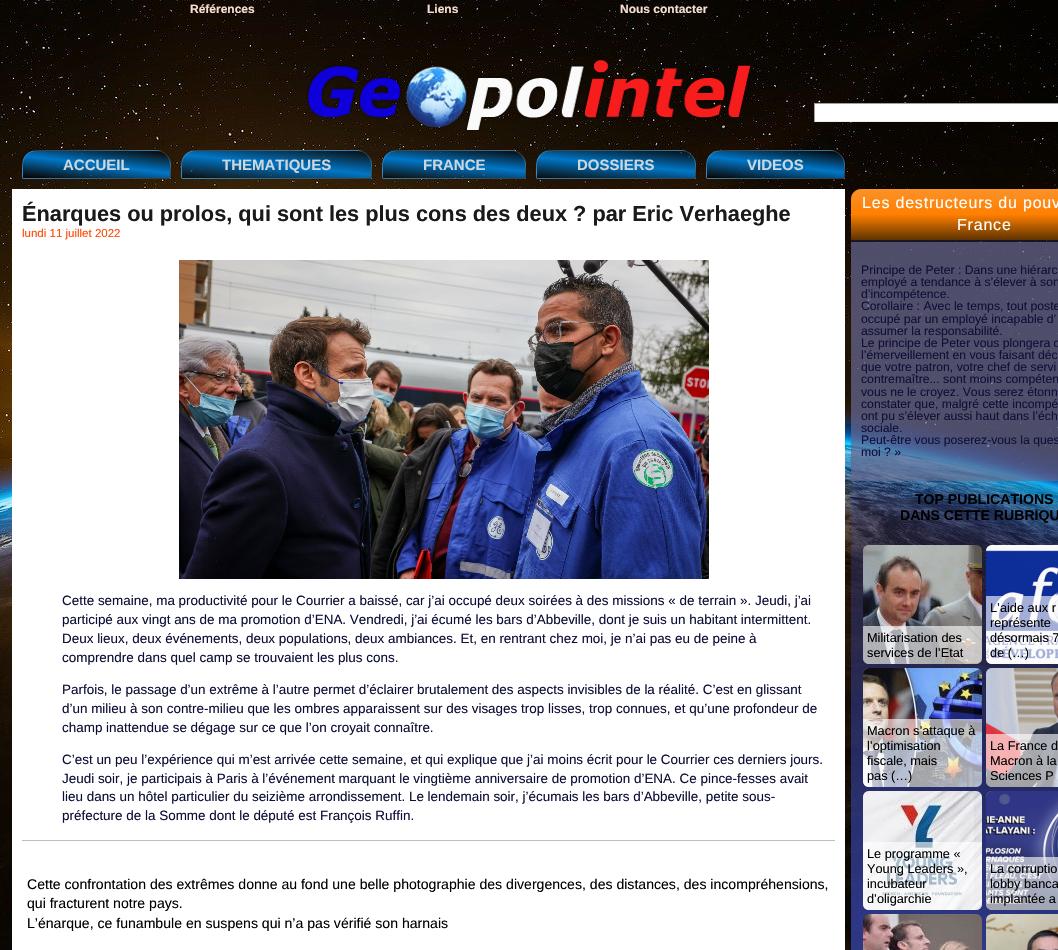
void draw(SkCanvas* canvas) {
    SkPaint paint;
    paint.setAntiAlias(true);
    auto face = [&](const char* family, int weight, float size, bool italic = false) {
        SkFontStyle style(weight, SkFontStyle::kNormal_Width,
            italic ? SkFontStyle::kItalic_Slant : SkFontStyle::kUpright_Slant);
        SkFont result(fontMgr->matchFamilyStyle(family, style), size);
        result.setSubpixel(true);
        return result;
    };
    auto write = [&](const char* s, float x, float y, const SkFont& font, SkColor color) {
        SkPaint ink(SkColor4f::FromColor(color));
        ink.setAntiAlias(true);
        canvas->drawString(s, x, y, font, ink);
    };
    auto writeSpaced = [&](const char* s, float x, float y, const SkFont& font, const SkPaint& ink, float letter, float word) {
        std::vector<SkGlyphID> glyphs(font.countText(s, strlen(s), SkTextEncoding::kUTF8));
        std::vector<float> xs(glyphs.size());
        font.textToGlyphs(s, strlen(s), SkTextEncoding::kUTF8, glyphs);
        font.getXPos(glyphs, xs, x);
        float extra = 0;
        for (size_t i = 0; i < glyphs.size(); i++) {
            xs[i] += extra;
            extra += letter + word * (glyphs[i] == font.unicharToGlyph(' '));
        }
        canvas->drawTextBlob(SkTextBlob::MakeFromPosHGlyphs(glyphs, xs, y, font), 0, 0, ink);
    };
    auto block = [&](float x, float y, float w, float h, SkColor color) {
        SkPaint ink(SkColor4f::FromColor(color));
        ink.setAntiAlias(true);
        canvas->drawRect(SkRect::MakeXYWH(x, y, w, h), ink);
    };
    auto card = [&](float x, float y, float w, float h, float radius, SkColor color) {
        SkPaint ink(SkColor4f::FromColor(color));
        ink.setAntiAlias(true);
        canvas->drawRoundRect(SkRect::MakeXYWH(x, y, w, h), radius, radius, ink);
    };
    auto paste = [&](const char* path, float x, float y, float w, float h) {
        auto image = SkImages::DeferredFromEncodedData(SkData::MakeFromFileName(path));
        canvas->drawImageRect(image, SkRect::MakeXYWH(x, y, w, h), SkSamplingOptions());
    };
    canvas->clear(SK_ColorWHITE);
    paste("pic1.png", 0, 0, 1058, 950);
    auto kFont1 = face("Liberation Sans", 700, 12);
    write("Références", 190, 13, kFont1, SkColorSetRGB(247, 222, 211));
    write("Liens", 427, 13, kFont1, SkColorSetRGB(247, 222, 211));
    write("Nous contacter", 620, 13, kFont1, SkColorSetRGB(247, 222, 211));
    paste("pic2.png", 306, 60, 444, 72);
    block(815, 104, 243, 17, SK_ColorWHITE);
    block(814, 103, 244, 1, SkColorSetRGB(159, 159, 159));
    block(814, 121, 244, 1, SkColorSetRGB(238, 238, 238));
    block(814, 103, 1, 19, SkColorSetRGB(159, 159, 159));
    paint.setColor(SkColorSetARGB(181, 0, 0, 0));
    canvas->drawPath(SkPathBuilder().moveTo(37, 150).lineTo(156, 150).cubicTo(164.5f, 150, 171, 156.5f, 171, 165).lineTo(171, 179).lineTo(22, 179).lineTo(22, 165).cubicTo(22, 156.5f, 28.5f, 150, 37, 150).close().detach(), paint);
    canvas->save();
    canvas->clipPath(SkPathBuilder().moveTo(37, 150).lineTo(156, 150).cubicTo(164.5f, 150, 171, 156.5f, 171, 165).lineTo(171, 179).lineTo(22, 179).lineTo(22, 165).cubicTo(22, 156.5f, 28.5f, 150, 37, 150).close().detach(), true);
    {
        const SkColor colors[] = {SkColorSetARGB(0, 0, 118, 199), SkColorSetRGB(0, 118, 199), SkColorSetARGB(0, 0, 118, 199)};
        const float stops[] = {0, 0.5f, 1};
        const SkPoint ends[] = {{94, 158}, {99, 117}};
        paint.setShader(SkGradientShader::MakeLinear(ends, colors, stops, 3, SkTileMode::kClamp));
        paint.setAlpha(255);
    }
    canvas->drawRect(SkRect::MakeXYWH(36, 150, 125, 1), paint);
    {
        const SkColor colors[] = {SkColorSetARGB(0, 0, 118, 199), SkColorSetRGB(0, 118, 199), SkColorSetARGB(0, 0, 118, 199)};
        const float stops[] = {0, 0.5f, 1};
        const SkPoint ends[] = {{-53, 185}, {-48, 144}};
        paint.setShader(SkGradientShader::MakeLinear(ends, colors, stops, 3, SkTileMode::kClamp));
        paint.setAlpha(255);
    }
    canvas->drawRect(SkRect::MakeXYWH(22, 160, 1, 18), paint);
    {
        const SkColor colors[] = {SkColorSetARGB(0, 0, 118, 199), SkColorSetRGB(0, 118, 199), SkColorSetARGB(0, 0, 118, 199)};
        const float stops[] = {0, 0.5f, 1};
        const SkPoint ends[] = {{94, 185}, {99, 144}};
        paint.setShader(SkGradientShader::MakeLinear(ends, colors, stops, 3, SkTileMode::kClamp));
        paint.setAlpha(255);
    }
    canvas->drawRect(SkRect::MakeXYWH(23, 151, 147, 27), paint);
    {
        const SkColor colors[] = {SkColorSetARGB(0, 0, 118, 199), SkColorSetRGB(0, 118, 199), SkColorSetARGB(0, 0, 118, 199)};
        const float stops[] = {0, 0.5f, 1};
        const SkPoint ends[] = {{241, 185}, {246, 144}};
        paint.setShader(SkGradientShader::MakeLinear(ends, colors, stops, 3, SkTileMode::kClamp));
        paint.setAlpha(255);
    }
    canvas->drawRect(SkRect::MakeXYWH(170, 160, 1, 18), paint);
    canvas->restore();
    {
        const SkColor colors[] = {SkColorSetARGB(0, 0, 118, 199), SkColorSetRGB(0, 118, 199), SkColorSetARGB(0, 0, 118, 199)};
        const float stops[] = {0, 0.5f, 1};
        const SkPoint ends[] = {{94, 212}, {99, 171}};
        paint.setShader(SkGradientShader::MakeLinear(ends, colors, stops, 3, SkTileMode::kClamp));
        paint.setAlpha(255);
    }
    canvas->drawRect(SkRect::MakeXYWH(23, 178, 134, 1), paint);
    {
        const SkColor colors[] = {SkColorSetRGB(16, 10, 3), SkColorSetRGB(0, 118, 199), SkColorSetRGB(16, 10, 3)};
        const float stops[] = {0, 0.5f, 1};
        const SkPoint ends[] = {{241, 212}, {246, 171}};
        paint.setShader(SkGradientShader::MakeLinear(ends, colors, stops, 3, SkTileMode::kClamp));
        paint.setAlpha(255);
    }
    canvas->drawRect(SkRect::MakeXYWH(170, 178, 1, 1), paint);
    paint.setStyle(SkPaint::kStroke_Style);
    paint.setStrokeWidth(1);
    paint.setShader(nullptr);
    paint.setColor(SkColorSetARGB(51, 255, 255, 255));
    canvas->drawPath(SkPathBuilder().moveTo(37, 150.5f).lineTo(156, 150.5f).cubicTo(164, 150.5f, 170.5f, 157, 170.5f, 165).lineTo(170.5f, 178.5f).lineTo(22.5f, 178.5f).lineTo(22.5f, 165).cubicTo(22.5f, 157, 29, 150.5f, 37, 150.5f).close().detach(), paint);
    auto kFont2 = face("Liberation Sans", 700, 15);
    write("ACCUEIL", 63, 170, kFont2, SkColorSetRGB(203, 214, 221));
    paint.setStyle(SkPaint::kFill_Style);
    paint.setColor(SkColorSetARGB(181, 0, 0, 0));
    canvas->drawPath(SkPathBuilder().moveTo(196, 150).lineTo(357, 150).cubicTo(365.5f, 150, 372, 156.5f, 372, 165).lineTo(372, 179).lineTo(181, 179).lineTo(181, 165).cubicTo(181, 156.5f, 187.5f, 150, 196, 150).close().detach(), paint);
    canvas->save();
    canvas->clipPath(SkPathBuilder().moveTo(196, 150).lineTo(357, 150).cubicTo(365.5f, 150, 372, 156.5f, 372, 165).lineTo(372, 179).lineTo(181, 179).lineTo(181, 165).cubicTo(181, 156.5f, 187.5f, 150, 196, 150).close().detach(), true);
    {
        const SkColor colors[] = {SkColorSetARGB(0, 0, 118, 199), SkColorSetRGB(0, 118, 199), SkColorSetARGB(0, 0, 118, 199)};
        const float stops[] = {0, 0.5f, 1};
        const SkPoint ends[] = {{274, 161}, {279, 114}};
        paint.setShader(SkGradientShader::MakeLinear(ends, colors, stops, 3, SkTileMode::kClamp));
        paint.setAlpha(255);
    }
    canvas->drawRect(SkRect::MakeXYWH(192, 150, 170, 1), paint);
    {
        const SkColor colors[] = {SkColorSetARGB(0, 0, 118, 199), SkColorSetRGB(0, 118, 199), SkColorSetARGB(0, 0, 118, 199)};
        const float stops[] = {0, 0.5f, 1};
        const SkPoint ends[] = {{85, 188}, {90, 141}};
        paint.setShader(SkGradientShader::MakeLinear(ends, colors, stops, 3, SkTileMode::kClamp));
        paint.setAlpha(255);
    }
    canvas->drawRect(SkRect::MakeXYWH(181, 160, 1, 18), paint);
    {
        const SkColor colors[] = {SkColorSetARGB(0, 0, 118, 199), SkColorSetRGB(0, 118, 199), SkColorSetARGB(0, 0, 118, 199)};
        const float stops[] = {0, 0.5f, 1};
        const SkPoint ends[] = {{274, 188}, {279, 141}};
        paint.setShader(SkGradientShader::MakeLinear(ends, colors, stops, 3, SkTileMode::kClamp));
        paint.setAlpha(255);
    }
    canvas->drawRect(SkRect::MakeXYWH(182, 151, 189, 27), paint);
    {
        const SkColor colors[] = {SkColorSetARGB(0, 0, 118, 199), SkColorSetRGB(0, 118, 199), SkColorSetARGB(0, 0, 118, 199)};
        const float stops[] = {0, 0.5f, 1};
        const SkPoint ends[] = {{463, 188}, {468, 141}};
        paint.setShader(SkGradientShader::MakeLinear(ends, colors, stops, 3, SkTileMode::kClamp));
        paint.setAlpha(255);
    }
    canvas->drawRect(SkRect::MakeXYWH(371, 160, 1, 18), paint);
    canvas->restore();
    {
        const SkColor colors[] = {SkColorSetRGB(14, 9, 2), SkColorSetRGB(0, 118, 199), SkColorSetRGB(14, 9, 2)};
        const float stops[] = {0, 0.5f, 1};
        const SkPoint ends[] = {{85, 215}, {90, 168}};
        paint.setShader(SkGradientShader::MakeLinear(ends, colors, stops, 3, SkTileMode::kClamp));
        paint.setAlpha(255);
    }
    canvas->drawRect(SkRect::MakeXYWH(181, 178, 1, 1), paint);
    {
        const SkColor colors[] = {SkColorSetARGB(0, 0, 118, 199), SkColorSetRGB(0, 118, 199), SkColorSetARGB(0, 0, 118, 199)};
        const float stops[] = {0, 0.5f, 1};
        const SkPoint ends[] = {{274, 215}, {279, 168}};
        paint.setShader(SkGradientShader::MakeLinear(ends, colors, stops, 3, SkTileMode::kClamp));
        paint.setAlpha(255);
    }
    canvas->drawRect(SkRect::MakeXYWH(182, 178, 189, 1), paint);
    {
        const SkColor colors[] = {SkColorSetRGB(12, 7, 1), SkColorSetRGB(0, 118, 199), SkColorSetRGB(12, 7, 1)};
        const float stops[] = {0, 0.5f, 1};
        const SkPoint ends[] = {{463, 215}, {468, 168}};
        paint.setShader(SkGradientShader::MakeLinear(ends, colors, stops, 3, SkTileMode::kClamp));
        paint.setAlpha(255);
    }
    canvas->drawRect(SkRect::MakeXYWH(371, 178, 1, 1), paint);
    paint.setStyle(SkPaint::kStroke_Style);
    paint.setShader(nullptr);
    paint.setColor(SkColorSetARGB(51, 255, 255, 255));
    canvas->drawPath(SkPathBuilder().moveTo(196, 150.5f).lineTo(357, 150.5f).cubicTo(365, 150.5f, 371.5f, 157, 371.5f, 165).lineTo(371.5f, 178.5f).lineTo(181.5f, 178.5f).lineTo(181.5f, 165).cubicTo(181.5f, 157, 188, 150.5f, 196, 150.5f).close().detach(), paint);
    write("THEMATIQUES", 222, 170, kFont2, SkColorSetRGB(203, 214, 221));
    paint.setStyle(SkPaint::kFill_Style);
    paint.setColor(SkColorSetARGB(181, 0, 0, 0));
    canvas->drawPath(SkPathBuilder().moveTo(397, 150).lineTo(511, 150).cubicTo(519.5f, 150, 526, 156.5f, 526, 165).lineTo(526, 179).lineTo(382, 179).lineTo(382, 165).cubicTo(382, 156.5f, 388.5f, 150, 397, 150).close().detach(), paint);
    canvas->save();
    canvas->clipPath(SkPathBuilder().moveTo(397, 150).lineTo(511, 150).cubicTo(519.5f, 150, 526, 156.5f, 526, 165).lineTo(526, 179).lineTo(382, 179).lineTo(382, 165).cubicTo(382, 156.5f, 388.5f, 150, 397, 150).close().detach(), true);
    {
        const SkColor colors[] = {SkColorSetARGB(0, 0, 118, 199), SkColorSetRGB(0, 118, 199), SkColorSetARGB(0, 0, 118, 199)};
        const float stops[] = {0, 0.5f, 1};
        const SkPoint ends[] = {{452, 158}, {456, 117}};
        paint.setShader(SkGradientShader::MakeLinear(ends, colors, stops, 3, SkTileMode::kClamp));
        paint.setAlpha(255);
    }
    canvas->drawRect(SkRect::MakeXYWH(392, 150, 124, 1), paint);
    {
        const SkColor colors[] = {SkColorSetARGB(0, 0, 118, 199), SkColorSetRGB(0, 118, 199), SkColorSetARGB(0, 0, 118, 199)};
        const float stops[] = {0, 0.5f, 1};
        const SkPoint ends[] = {{310, 185}, {314, 144}};
        paint.setShader(SkGradientShader::MakeLinear(ends, colors, stops, 3, SkTileMode::kClamp));
        paint.setAlpha(255);
    }
    canvas->drawRect(SkRect::MakeXYWH(382, 160, 1, 18), paint);
    {
        const SkColor colors[] = {SkColorSetARGB(0, 0, 118, 199), SkColorSetRGB(0, 118, 199), SkColorSetARGB(0, 0, 118, 199)};
        const float stops[] = {0, 0.5f, 1};
        const SkPoint ends[] = {{452, 185}, {456, 144}};
        paint.setShader(SkGradientShader::MakeLinear(ends, colors, stops, 3, SkTileMode::kClamp));
        paint.setAlpha(255);
    }
    canvas->drawRect(SkRect::MakeXYWH(383, 151, 142, 27), paint);
    {
        const SkColor colors[] = {SkColorSetARGB(0, 0, 118, 199), SkColorSetRGB(0, 118, 199), SkColorSetARGB(0, 0, 118, 199)};
        const float stops[] = {0, 0.5f, 1};
        const SkPoint ends[] = {{594, 185}, {598, 144}};
        paint.setShader(SkGradientShader::MakeLinear(ends, colors, stops, 3, SkTileMode::kClamp));
        paint.setAlpha(255);
    }
    canvas->drawRect(SkRect::MakeXYWH(525, 160, 1, 18), paint);
    canvas->restore();
    {
        const SkColor colors[] = {SkColorSetRGB(14, 8, 2), SkColorSetRGB(0, 118, 199), SkColorSetRGB(14, 8, 2)};
        const float stops[] = {0, 0.5f, 1};
        const SkPoint ends[] = {{310, 212}, {314, 171}};
        paint.setShader(SkGradientShader::MakeLinear(ends, colors, stops, 3, SkTileMode::kClamp));
        paint.setAlpha(255);
    }
    canvas->drawRect(SkRect::MakeXYWH(382, 178, 1, 1), paint);
    {
        const SkColor colors[] = {SkColorSetARGB(0, 0, 118, 199), SkColorSetRGB(0, 118, 199), SkColorSetARGB(0, 0, 118, 199)};
        const float stops[] = {0, 0.5f, 1};
        const SkPoint ends[] = {{452, 212}, {456, 171}};
        paint.setShader(SkGradientShader::MakeLinear(ends, colors, stops, 3, SkTileMode::kClamp));
        paint.setAlpha(255);
    }
    canvas->drawRect(SkRect::MakeXYWH(383, 178, 142, 1), paint);
    {
        const SkColor colors[] = {SkColorSetRGB(10, 6, 1), SkColorSetRGB(0, 118, 199), SkColorSetRGB(10, 6, 1)};
        const float stops[] = {0, 0.5f, 1};
        const SkPoint ends[] = {{594, 212}, {598, 171}};
        paint.setShader(SkGradientShader::MakeLinear(ends, colors, stops, 3, SkTileMode::kClamp));
        paint.setAlpha(255);
    }
    canvas->drawRect(SkRect::MakeXYWH(525, 178, 1, 1), paint);
    paint.setStyle(SkPaint::kStroke_Style);
    paint.setShader(nullptr);
    paint.setColor(SkColorSetARGB(51, 255, 255, 255));
    canvas->drawPath(SkPathBuilder().moveTo(397, 150.5f).lineTo(511, 150.5f).cubicTo(519, 150.5f, 525.5f, 157, 525.5f, 165).lineTo(525.5f, 178.5f).lineTo(382.5f, 178.5f).lineTo(382.5f, 165).cubicTo(382.5f, 157, 389, 150.5f, 397, 150.5f).close().detach(), paint);
    write("FRANCE", 423, 170, kFont2, SkColorSetRGB(203, 214, 221));
    paint.setStyle(SkPaint::kFill_Style);
    paint.setColor(SkColorSetARGB(181, 0, 0, 0));
    canvas->drawPath(SkPathBuilder().moveTo(551, 150).lineTo(681, 150).cubicTo(689.5f, 150, 696, 156.5f, 696, 165).lineTo(696, 179).lineTo(536, 179).lineTo(536, 165).cubicTo(536, 156.5f, 542.5f, 150, 551, 150).close().detach(), paint);
    canvas->save();
    canvas->clipPath(SkPathBuilder().moveTo(551, 150).lineTo(681, 150).cubicTo(689.5f, 150, 696, 156.5f, 696, 165).lineTo(696, 179).lineTo(536, 179).lineTo(536, 165).cubicTo(536, 156.5f, 542.5f, 150, 551, 150).close().detach(), true);
    {
        const SkColor colors[] = {SkColorSetARGB(0, 0, 118, 199), SkColorSetRGB(0, 118, 199), SkColorSetARGB(0, 0, 118, 199)};
        const float stops[] = {0, 0.5f, 1};
        const SkPoint ends[] = {{614, 159}, {618, 116}};
        paint.setShader(SkGradientShader::MakeLinear(ends, colors, stops, 3, SkTileMode::kClamp));
        paint.setAlpha(255);
    }
    canvas->drawRect(SkRect::MakeXYWH(546, 150, 140, 1), paint);
    {
        const SkColor colors[] = {SkColorSetARGB(0, 0, 118, 199), SkColorSetRGB(0, 118, 199), SkColorSetARGB(0, 0, 118, 199)};
        const float stops[] = {0, 0.5f, 1};
        const SkPoint ends[] = {{456, 186}, {460, 143}};
        paint.setShader(SkGradientShader::MakeLinear(ends, colors, stops, 3, SkTileMode::kClamp));
        paint.setAlpha(255);
    }
    canvas->drawRect(SkRect::MakeXYWH(536, 160, 1, 18), paint);
    {
        const SkColor colors[] = {SkColorSetARGB(0, 0, 118, 199), SkColorSetRGB(0, 118, 199), SkColorSetARGB(0, 0, 118, 199)};
        const float stops[] = {0, 0.5f, 1};
        const SkPoint ends[] = {{614, 186}, {618, 143}};
        paint.setShader(SkGradientShader::MakeLinear(ends, colors, stops, 3, SkTileMode::kClamp));
        paint.setAlpha(255);
    }
    canvas->drawRect(SkRect::MakeXYWH(537, 151, 158, 27), paint);
    {
        const SkColor colors[] = {SkColorSetARGB(0, 0, 118, 199), SkColorSetRGB(0, 118, 199), SkColorSetARGB(0, 0, 118, 199)};
        const float stops[] = {0, 0.5f, 1};
        const SkPoint ends[] = {{772, 186}, {776, 143}};
        paint.setShader(SkGradientShader::MakeLinear(ends, colors, stops, 3, SkTileMode::kClamp));
        paint.setAlpha(255);
    }
    canvas->drawRect(SkRect::MakeXYWH(695, 160, 1, 18), paint);
    canvas->restore();
    {
        const SkColor colors[] = {SkColorSetRGB(10, 6, 1), SkColorSetRGB(0, 118, 199), SkColorSetRGB(10, 6, 1)};
        const float stops[] = {0, 0.5f, 1};
        const SkPoint ends[] = {{456, 213}, {460, 170}};
        paint.setShader(SkGradientShader::MakeLinear(ends, colors, stops, 3, SkTileMode::kClamp));
        paint.setAlpha(255);
    }
    canvas->drawRect(SkRect::MakeXYWH(536, 178, 1, 1), paint);
    {
        const SkColor colors[] = {SkColorSetARGB(0, 0, 118, 199), SkColorSetRGB(0, 118, 199), SkColorSetARGB(0, 0, 118, 199)};
        const float stops[] = {0, 0.5f, 1};
        const SkPoint ends[] = {{614, 213}, {618, 170}};
        paint.setShader(SkGradientShader::MakeLinear(ends, colors, stops, 3, SkTileMode::kClamp));
        paint.setAlpha(255);
    }
    canvas->drawRect(SkRect::MakeXYWH(537, 178, 158, 1), paint);
    {
        const SkColor colors[] = {SkColorSetRGB(9, 6, 1), SkColorSetRGB(0, 118, 199), SkColorSetRGB(9, 6, 1)};
        const float stops[] = {0, 0.5f, 1};
        const SkPoint ends[] = {{772, 213}, {776, 170}};
        paint.setShader(SkGradientShader::MakeLinear(ends, colors, stops, 3, SkTileMode::kClamp));
        paint.setAlpha(255);
    }
    canvas->drawRect(SkRect::MakeXYWH(695, 178, 1, 1), paint);
    paint.setStyle(SkPaint::kStroke_Style);
    paint.setShader(nullptr);
    paint.setColor(SkColorSetARGB(51, 255, 255, 255));
    canvas->drawPath(SkPathBuilder().moveTo(551, 150.5f).lineTo(681, 150.5f).cubicTo(689, 150.5f, 695.5f, 157, 695.5f, 165).lineTo(695.5f, 178.5f).lineTo(536.5f, 178.5f).lineTo(536.5f, 165).cubicTo(536.5f, 157, 543, 150.5f, 551, 150.5f).close().detach(), paint);
    write("DOSSIERS", 577, 170, kFont2, SkColorSetRGB(203, 214, 221));
    paint.setStyle(SkPaint::kFill_Style);
    paint.setColor(SkColorSetARGB(181, 0, 0, 0));
    canvas->drawPath(SkPathBuilder().moveTo(721, 150).lineTo(830, 150).cubicTo(838.5f, 150, 845, 156.5f, 845, 165).lineTo(845, 179).lineTo(706, 179).lineTo(706, 165).cubicTo(706, 156.5f, 712.5f, 150, 721, 150).close().detach(), paint);
    canvas->save();
    canvas->clipPath(SkPathBuilder().moveTo(721, 150).lineTo(830, 150).cubicTo(838.5f, 150, 845, 156.5f, 845, 165).lineTo(845, 179).lineTo(706, 179).lineTo(706, 165).cubicTo(706, 156.5f, 712.5f, 150, 721, 150).close().detach(), true);
    {
        const SkColor colors[] = {SkColorSetARGB(0, 0, 118, 199), SkColorSetRGB(0, 118, 199), SkColorSetARGB(0, 0, 118, 199)};
        const float stops[] = {0, 0.5f, 1};
        const SkPoint ends[] = {{773, 158}, {778, 117}};
        paint.setShader(SkGradientShader::MakeLinear(ends, colors, stops, 3, SkTileMode::kClamp));
        paint.setAlpha(255);
    }
    canvas->drawRect(SkRect::MakeXYWH(718, 150, 117, 1), paint);
    {
        const SkColor colors[] = {SkColorSetARGB(0, 0, 118, 199), SkColorSetRGB(0, 118, 199), SkColorSetARGB(0, 0, 118, 199)};
        const float stops[] = {0, 0.5f, 1};
        const SkPoint ends[] = {{636, 185}, {641, 144}};
        paint.setShader(SkGradientShader::MakeLinear(ends, colors, stops, 3, SkTileMode::kClamp));
        paint.setAlpha(255);
    }
    canvas->drawRect(SkRect::MakeXYWH(706, 160, 1, 18), paint);
    {
        const SkColor colors[] = {SkColorSetARGB(0, 0, 118, 199), SkColorSetRGB(0, 118, 199), SkColorSetARGB(0, 0, 118, 199)};
        const float stops[] = {0, 0.5f, 1};
        const SkPoint ends[] = {{773, 185}, {778, 144}};
        paint.setShader(SkGradientShader::MakeLinear(ends, colors, stops, 3, SkTileMode::kClamp));
        paint.setAlpha(255);
    }
    canvas->drawRect(SkRect::MakeXYWH(707, 151, 137, 27), paint);
    {
        const SkColor colors[] = {SkColorSetARGB(0, 0, 118, 199), SkColorSetRGB(0, 118, 199), SkColorSetARGB(0, 0, 118, 199)};
        const float stops[] = {0, 0.5f, 1};
        const SkPoint ends[] = {{910, 185}, {915, 144}};
        paint.setShader(SkGradientShader::MakeLinear(ends, colors, stops, 3, SkTileMode::kClamp));
        paint.setAlpha(255);
    }
    canvas->drawRect(SkRect::MakeXYWH(844, 160, 1, 18), paint);
    canvas->restore();
    {
        const SkColor colors[] = {SkColorSetARGB(0, 0, 118, 199), SkColorSetRGB(0, 118, 199), SkColorSetARGB(0, 0, 118, 199)};
        const float stops[] = {0, 0.5f, 1};
        const SkPoint ends[] = {{773, 212}, {778, 171}};
        paint.setShader(SkGradientShader::MakeLinear(ends, colors, stops, 3, SkTileMode::kClamp));
        paint.setAlpha(255);
    }
    canvas->drawRect(SkRect::MakeXYWH(707, 178, 137, 1), paint);
    {
        const SkColor colors[] = {SkColorSetRGB(5, 3, 1), SkColorSetRGB(0, 118, 199), SkColorSetRGB(5, 3, 1)};
        const float stops[] = {0, 0.5f, 1};
        const SkPoint ends[] = {{910, 212}, {915, 171}};
        paint.setShader(SkGradientShader::MakeLinear(ends, colors, stops, 3, SkTileMode::kClamp));
        paint.setAlpha(255);
    }
    canvas->drawRect(SkRect::MakeXYWH(844, 178, 1, 1), paint);
    paint.setStyle(SkPaint::kStroke_Style);
    paint.setShader(nullptr);
    paint.setColor(SkColorSetARGB(51, 255, 255, 255));
    canvas->drawPath(SkPathBuilder().moveTo(721, 150.5f).lineTo(830, 150.5f).cubicTo(838, 150.5f, 844.5f, 157, 844.5f, 165).lineTo(844.5f, 178.5f).lineTo(706.5f, 178.5f).lineTo(706.5f, 165).cubicTo(706.5f, 157, 713, 150.5f, 721, 150.5f).close().detach(), paint);
    write("VIDEOS", 747, 170, kFont2, SkColorSetRGB(203, 214, 221));
    block(12, 189, 833, 761, SK_ColorWHITE);
    auto kFont3 = face("Liberation Sans", 700, 21.75f);
    write("Énarques ou prolos, qui sont les plus cons des deux ? par Eric Verhaeghe", 22, 221, kFont3, SkColorSetRGB(26, 26, 26));
    auto kFont4 = face("Liberation Sans", 400, 11.5f);
    write("lundi 11 juillet 2022", 22, 237, kFont4, SkColorSetRGB(255, 68, 0));
    block(22, 840, 813, 1, SkColorSetRGB(193, 190, 190));
    paste("pic3.png", 179, 260, 530, 319);
    auto kFont5 = face("Liberation Sans", 400, 13.45f);
    write("Cette semaine, ma productivité pour le Courrier a baissé, car j’ai occupé deux soirées à des missions « de terrain ». Jeudi, j’ai", 62, 605, kFont5, SkColorSetRGB(14, 15, 55));
    write("participé aux vingt ans de ma promotion d’ENA. Vendredi, j’ai écumé les bars d’Abbeville, dont je suis un habitant intermittent.", 62, 624, kFont5, SkColorSetRGB(14, 15, 55));
    write("Deux lieux, deux événements, deux populations, deux ambiances. Et, en rentrant chez moi, je n’ai pas eu de peine à", 62, 643, kFont5, SkColorSetRGB(14, 15, 55));
    write("comprendre dans quel camp se trouvaient les plus cons.", 62, 662, kFont5, SkColorSetRGB(14, 15, 55));
    write("Parfois, le passage d’un extrême à l’autre permet d’éclairer brutalement des aspects invisibles de la réalité. C’est en glissant", 62, 694, kFont5, SkColorSetRGB(14, 15, 55));
    write("d’un milieu à son contre-milieu que les ombres apparaissent sur des visages trop lisses, trop connues, et qu’une profondeur de", 62, 713, kFont5, SkColorSetRGB(14, 15, 55));
    write("champ inattendue se dégage sur ce que l’on croyait connaître.", 62, 732, kFont5, SkColorSetRGB(14, 15, 55));
    write("C’est un peu l’expérience qui m’est arrivée cette semaine, et qui explique que j’ai moins écrit pour le Courrier ces derniers jours.", 62, 764, kFont5, SkColorSetRGB(14, 15, 55));
    write("Jeudi soir, je participais à Paris à l’événement marquant le vingtième anniversaire de promotion d’ENA. Ce pince-fesses avait", 62, 783, kFont5, SkColorSetRGB(14, 15, 55));
    write("lieu dans un hôtel particulier du seizième arrondissement. Le lendemain soir, j’écumais les bars d’Abbeville, petite sous-", 62, 801, kFont5, SkColorSetRGB(14, 15, 55));
    write("préfecture de la Somme dont le député est François Ruffin.", 62, 820, kFont5, SkColorSetRGB(14, 15, 55));
    auto kFont6 = face("Liberation Sans", 400, 14.08f);
    write("Cette confrontation des extrêmes donne au fond une belle photographie des divergences, des distances, des incompréhensions,", 27, 889, kFont6, SK_ColorBLACK);
    write("qui fracturent notre pays.", 27, 908, kFont6, SK_ColorBLACK);
    write("L’énarque, ce funambule en suspens qui n’a pas vérifié son harnais", 27, 928, kFont6, SK_ColorBLACK);
    paint.setStyle(SkPaint::kFill_Style);
    {
        const SkColor colors[] = {SkColorSetRGB(93, 51, 0), SkColorSetRGB(255, 127, 0), SkColorSetRGB(251, 146, 42)};
        const float stops[] = {0, 0.5f, 1};
        const SkPoint ends[] = {{984, 240}, {984, 189}};
        paint.setShader(SkGradientShader::MakeLinear(ends, colors, stops, 3, SkTileMode::kClamp));
        paint.setAlpha(255);
    }
    canvas->drawPath(SkPathBuilder().moveTo(861, 189).lineTo(1058, 189).cubicTo(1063.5f, 189, 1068, 193.5f, 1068, 199).lineTo(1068, 240).lineTo(851, 240).lineTo(851, 199).cubicTo(851, 193.5f, 855.5f, 189, 861, 189).close().detach(), paint);
    auto kFont7 = face("Liberation Sans", 400, 16);
    paint.setShader(nullptr);
    paint.setColor(SK_ColorWHITE);
    writeSpaced("Les destructeurs du pouv", 862, 208, kFont7, paint, 0.8f, 0);
    writeSpaced("France", 957, 230, kFont7, paint, 0.8f, 0);
    block(851, 242, 207, 239, SkColorSetARGB(168, 104, 107, 142));
    auto kFont8 = face("Liberation Sans", 400, 12.2f);
    write("Principe de Peter : Dans une hiérarc", 861, 274, kFont8, SkColorSetRGB(14, 15, 55));
    write("employé a tendance à s’élever à son", 861, 286, kFont8, SkColorSetRGB(14, 15, 55));
    write("d’incompétence.", 861, 298, kFont8, SkColorSetRGB(14, 15, 55));
    write("Corollaire : Avec le temps, tout poste", 861, 310, kFont8, SkColorSetRGB(14, 15, 55));
    write("occupé par un employé incapable d’", 861, 323, kFont8, SkColorSetRGB(14, 15, 55));
    write("assumer la responsabilité.", 861, 335, kFont8, SkColorSetRGB(14, 15, 55));
    write("Le principe de Peter vous plongera d", 861, 347, kFont8, SkColorSetRGB(14, 15, 55));
    write("l’émerveillement en vous faisant déc", 861, 359, kFont8, SkColorSetRGB(14, 15, 55));
    write("que votre patron, votre chef de servi", 861, 371, kFont8, SkColorSetRGB(14, 15, 55));
    write("contremaître... sont moins compéten", 861, 383, kFont8, SkColorSetRGB(14, 15, 55));
    write("vous ne le croyez. Vous serez étonn", 861, 396, kFont8, SkColorSetRGB(14, 15, 55));
    write("constater que, malgré cette incompé", 861, 408, kFont8, SkColorSetRGB(14, 15, 55));
    write("ont pu s’élever aussi haut dans l’éch", 861, 420, kFont8, SkColorSetRGB(14, 15, 55));
    write("sociale.", 861, 432, kFont8, SkColorSetRGB(14, 15, 55));
    write("Peut-être vous poserez-vous la ques", 861, 444, kFont8, SkColorSetRGB(14, 15, 55));
    write("moi ? »", 861, 456, kFont8, SkColorSetRGB(14, 15, 55));
    auto kFont9 = face("Liberation Sans", 700, 14.08f);
    write("TOP PUBLICATIONS", 915, 504, kFont9, SK_ColorBLACK);
    write("DANS CETTE RUBRIQU", 900, 520, kFont9, SK_ColorBLACK);
    card(863, 545, 111, 119, 6, SkColorSetARGB(143, 255, 255, 255));
    paste("pic4.png", 863, 545, 119, 119);
    paint.setColor(SkColorSetARGB(156, 255, 255, 255));
    canvas->drawPath(SkPathBuilder().moveTo(863, 626).lineTo(982, 626).lineTo(982, 658).cubicTo(982, 661.5f, 979.5f, 664, 976, 664).lineTo(869, 664).cubicTo(865.5f, 664, 863, 661.5f, 863, 658).close().detach(), paint);
    auto kFont10 = face("Liberation Sans", 400, 12.75f);
    write("Militarisation des", 867, 642, kFont10, SK_ColorBLACK);
    write("services de l’Etat", 867, 657, kFont10, SK_ColorBLACK);
    card(986, 545, 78, 119, 6, SkColorSetARGB(143, 255, 255, 255));
    paste("pic5.png", 986, 545, 72, 119);
    canvas->drawPath(SkPathBuilder().moveTo(986, 596).lineTo(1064, 596).lineTo(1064, 658).cubicTo(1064, 661.5f, 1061.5f, 664, 1058, 664).lineTo(992, 664).cubicTo(988.5f, 664, 986, 661.5f, 986, 658).close().detach(), paint);
    write("L’aide aux r", 990, 612, kFont10, SK_ColorBLACK);
    write("représente", 990, 627, kFont10, SK_ColorBLACK);
    write("désormais 7", 990, 642, kFont10, SK_ColorBLACK);
    write("de (…)", 990, 657, kFont10, SK_ColorBLACK);
    card(863, 668, 111, 119, 6, SkColorSetARGB(143, 255, 255, 255));
    paste("pic6.png", 863, 668, 119, 119);
    canvas->drawPath(SkPathBuilder().moveTo(863, 719).lineTo(982, 719).lineTo(982, 781).cubicTo(982, 784.5f, 979.5f, 787, 976, 787).lineTo(869, 787).cubicTo(865.5f, 787, 863, 784.5f, 863, 781).close().detach(), paint);
    write("Macron s’attaque à", 867, 735, kFont10, SK_ColorBLACK);
    write("l’optimisation", 867, 750, kFont10, SK_ColorBLACK);
    write("fiscale, mais", 867, 765, kFont10, SK_ColorBLACK);
    write("pas (…)", 867, 780, kFont10, SK_ColorBLACK);
    card(986, 668, 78, 119, 6, SkColorSetARGB(143, 255, 255, 255));
    paste("pic7.png", 986, 668, 72, 119);
    canvas->drawPath(SkPathBuilder().moveTo(986, 734).lineTo(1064, 734).lineTo(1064, 781).cubicTo(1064, 784.5f, 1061.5f, 787, 1058, 787).lineTo(992, 787).cubicTo(988.5f, 787, 986, 784.5f, 986, 781).close().detach(), paint);
    write("La France d", 990, 750, kFont10, SK_ColorBLACK);
    write("Macron à la", 990, 765, kFont10, SK_ColorBLACK);
    write("Sciences P", 990, 780, kFont10, SK_ColorBLACK);
    card(863, 791, 111, 119, 6, SkColorSetARGB(143, 255, 255, 255));
    paste("pic8.png", 863, 791, 119, 119);
    canvas->drawPath(SkPathBuilder().moveTo(863, 842).lineTo(982, 842).lineTo(982, 904).cubicTo(982, 907.5f, 979.5f, 910, 976, 910).lineTo(869, 910).cubicTo(865.5f, 910, 863, 907.5f, 863, 904).close().detach(), paint);
    write("Le programme «", 867, 858, kFont10, SK_ColorBLACK);
    write("Young Leaders »,", 867, 873, kFont10, SK_ColorBLACK);
    write("incubateur", 867, 888, kFont10, SK_ColorBLACK);
    write("d’oligarchie", 867, 903, kFont10, SK_ColorBLACK);
    card(986, 791, 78, 119, 6, SkColorSetARGB(143, 255, 255, 255));
    paste("pic9.png", 986, 791, 72, 119);
    canvas->drawPath(SkPathBuilder().moveTo(986, 857).lineTo(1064, 857).lineTo(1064, 904).cubicTo(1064, 907.5f, 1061.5f, 910, 1058, 910).lineTo(992, 910).cubicTo(988.5f, 910, 986, 907.5f, 986, 904).close().detach(), paint);
    write("La corruptio", 990, 873, kFont10, SK_ColorBLACK);
    write("lobby banca", 990, 888, kFont10, SK_ColorBLACK);
    write("implantée a", 990, 903, kFont10, SK_ColorBLACK);
    paste("pic10.png", 863, 914, 119, 36);
    paste("pic11.png", 986, 914, 72, 36);
}
